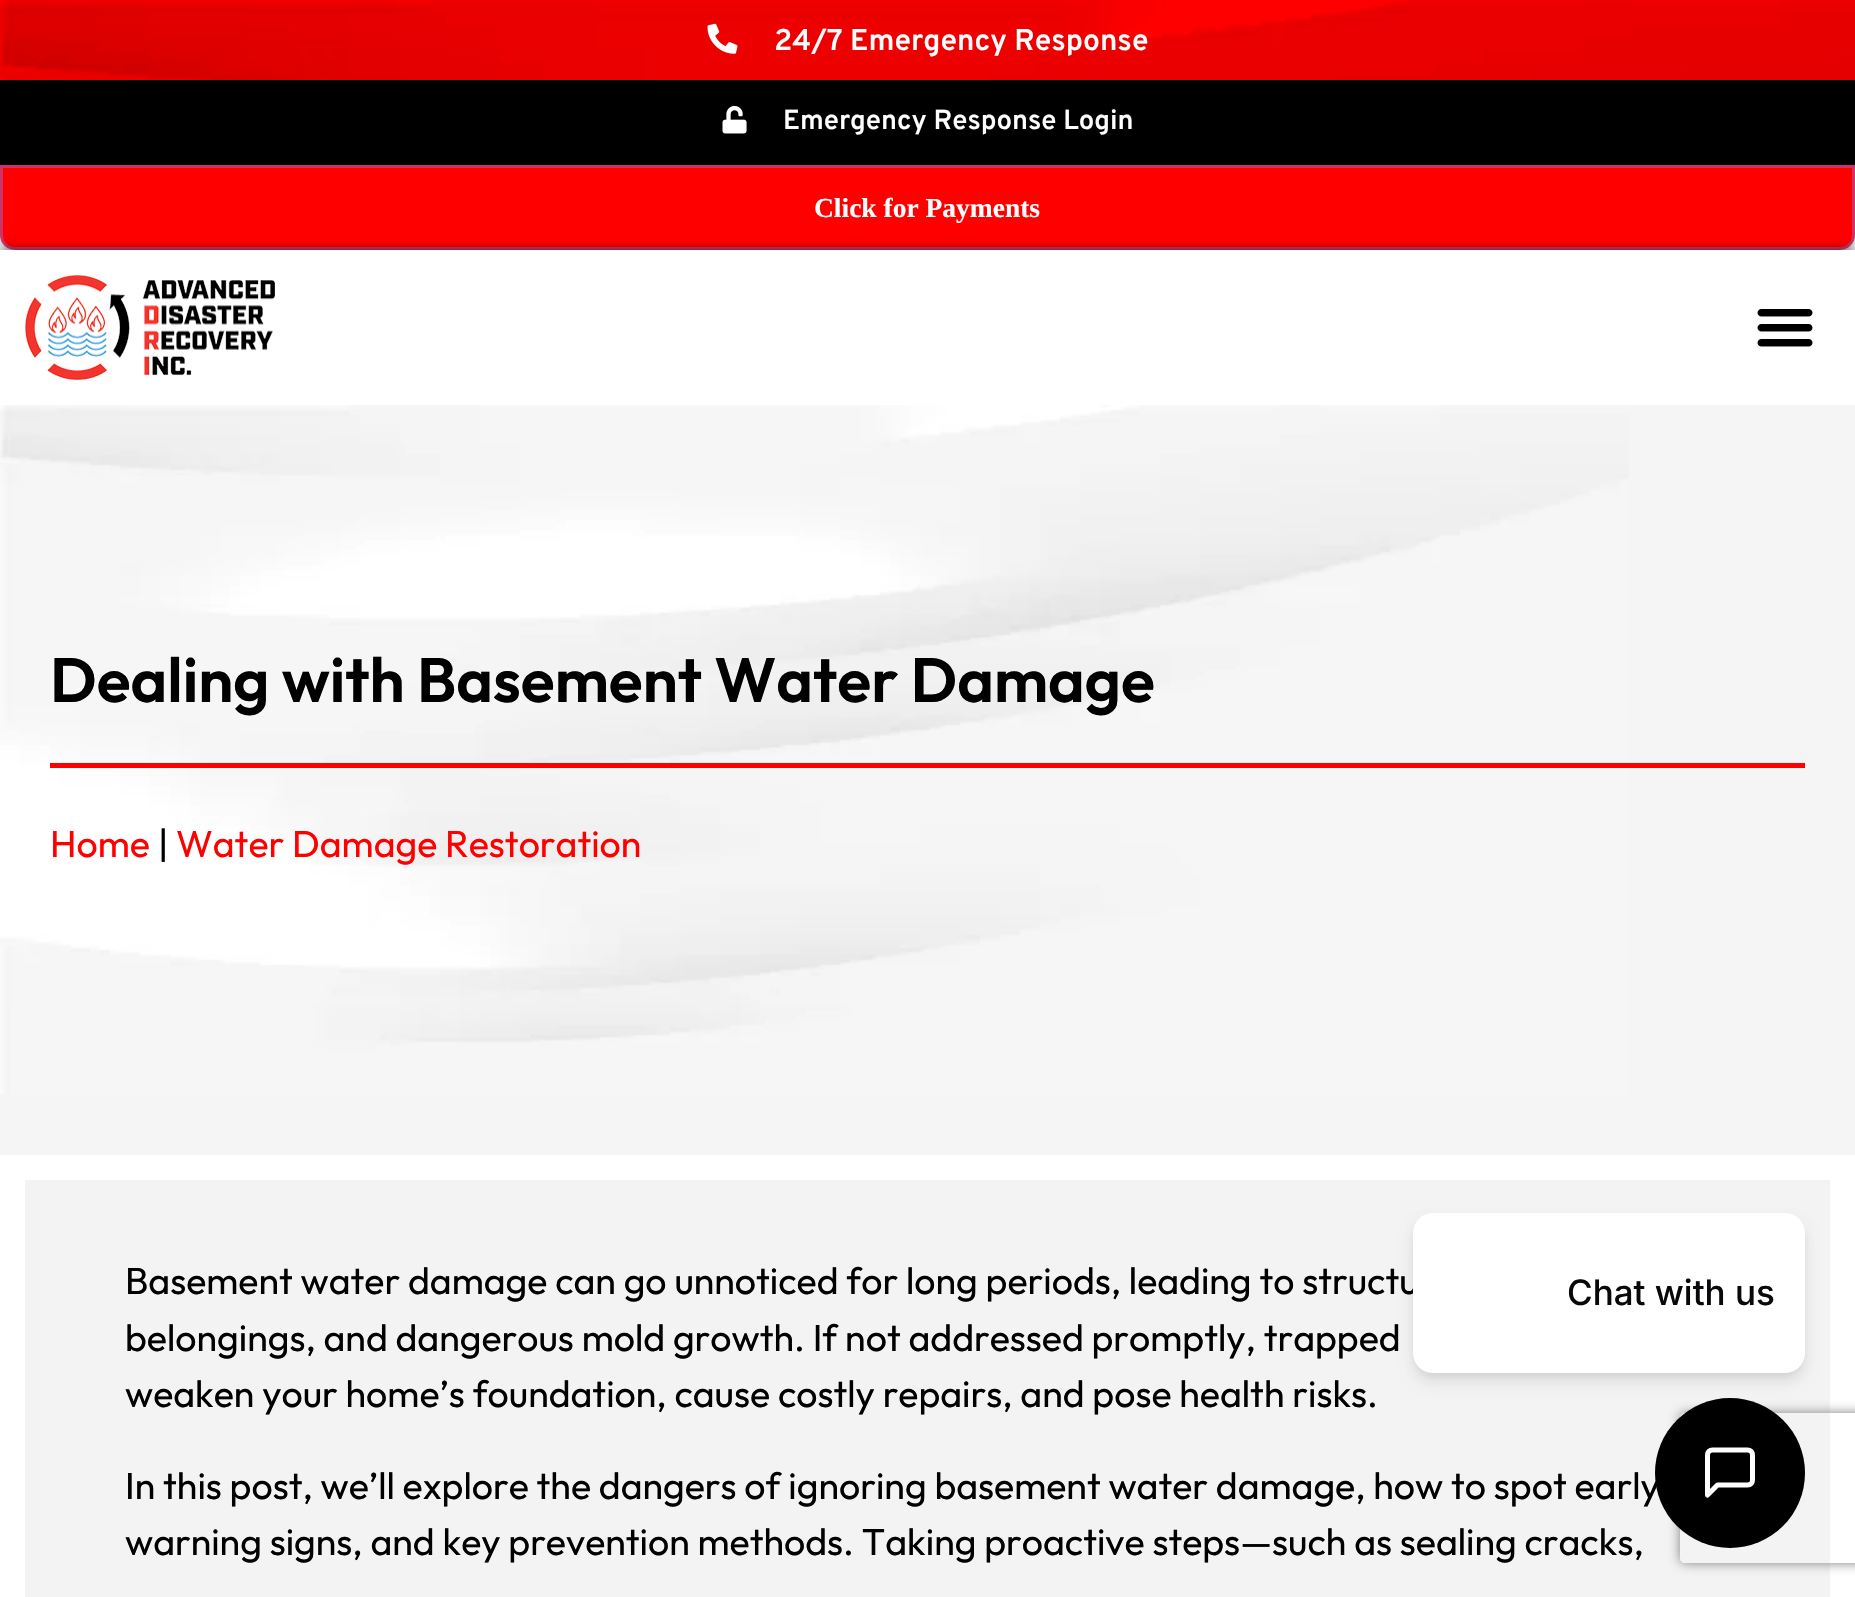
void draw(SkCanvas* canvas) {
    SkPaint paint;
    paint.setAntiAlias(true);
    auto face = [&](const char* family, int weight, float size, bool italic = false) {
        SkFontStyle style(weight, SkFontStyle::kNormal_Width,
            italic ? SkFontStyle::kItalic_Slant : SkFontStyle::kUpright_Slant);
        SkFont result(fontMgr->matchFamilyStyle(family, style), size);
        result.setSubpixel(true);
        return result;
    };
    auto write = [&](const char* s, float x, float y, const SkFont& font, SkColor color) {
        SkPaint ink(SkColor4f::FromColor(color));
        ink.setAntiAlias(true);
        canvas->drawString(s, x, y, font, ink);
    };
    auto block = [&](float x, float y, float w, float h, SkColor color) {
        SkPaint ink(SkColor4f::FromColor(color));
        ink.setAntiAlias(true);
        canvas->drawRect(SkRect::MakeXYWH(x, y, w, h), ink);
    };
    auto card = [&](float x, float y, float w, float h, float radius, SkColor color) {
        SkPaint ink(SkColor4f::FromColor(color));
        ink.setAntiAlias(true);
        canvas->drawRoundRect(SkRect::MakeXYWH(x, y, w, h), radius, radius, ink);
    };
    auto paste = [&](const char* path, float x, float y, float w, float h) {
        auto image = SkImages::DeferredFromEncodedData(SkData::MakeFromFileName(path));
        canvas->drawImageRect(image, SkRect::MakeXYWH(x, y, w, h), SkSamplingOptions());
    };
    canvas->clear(SK_ColorWHITE);
    paste("pic1.png", 0, 0, 1855, 80);
    paste("pic2.png", 707, 23, 31, 31);
    auto kFont1 = face("Overpass", 600, 30);
    write("24/7 Emergency Response", 774, 50, kFont1, SK_ColorWHITE);
    block(0, 80, 1855, 85, SK_ColorBLACK);
    paste("pic3.png", 722, 105, 25, 29);
    auto kFont2 = face("Overpass", 600, 27.5f);
    write("Emergency Response Login", 783, 129, kFont2, SK_ColorWHITE);
    paint.setColor(SkColorSetARGB(64, 0, 0, 0));
    paint.setMaskFilter(SkMaskFilter::MakeBlur(kNormal_SkBlurStyle, 5));
    canvas->drawRoundRect(SkRect::MakeXYWH(0, 170, 1855, 85), 15, 15, paint);
    paint.setMaskFilter(nullptr);
    paint.setColor(SkColorSetRGB(255, 0, 0));
    canvas->drawPath(SkPathBuilder().moveTo(1.5f, 166.5f).lineTo(1853.5f, 166.5f).lineTo(1853.5f, 235).cubicTo(1853.5f, 242.5f, 1847.5f, 248.5f, 1840, 248.5f).lineTo(15, 248.5f).cubicTo(7.5f, 248.5f, 1.5f, 242.5f, 1.5f, 235).close().detach(), paint);
    paint.setStyle(SkPaint::kStroke_Style);
    paint.setStrokeWidth(3);
    paint.setColor(SkColorSetRGB(204, 51, 102));
    canvas->drawPath(SkPathBuilder().moveTo(1.5f, 166.5f).lineTo(1853.5f, 166.5f).lineTo(1853.5f, 235).cubicTo(1853.5f, 242.5f, 1847.5f, 248.5f, 1840, 248.5f).lineTo(15, 248.5f).cubicTo(7.5f, 248.5f, 1.5f, 242.5f, 1.5f, 235).close().detach(), paint);
    auto kFont3 = face("Liberation Serif", 700, 27.5f);
    write("Click for Payments", 814, 217, kFont3, SK_ColorWHITE);
    paint.setStyle(SkPaint::kFill_Style);
    paint.setColor(SkColorSetARGB(128, 0, 0, 0));
    paint.setMaskFilter(SkMaskFilter::MakeBlur(kNormal_SkBlurStyle, 6));
    canvas->drawRect(SkRect::MakeXYWH(0, 250, 1855, 155), paint);
    paint.setMaskFilter(nullptr);
    block(0, 250, 1855, 155, SK_ColorWHITE);
    paste("pic4.png", 25, 275, 250, 105);
    paste("pic5.png", 1757, 309, 56, 38);
    block(0, 405, 1855, 750, SkColorSetRGB(245, 245, 245));
    paste("pic6.png", 0, 405, 1629, 690);
    auto kFont4 = face("Outfit", 600, 62.5f);
    write("Dealing with Basement Water Damage", 50, 702, kFont4, SK_ColorBLACK);
    block(50, 763, 1755, 5, SkColorSetRGB(255, 0, 0));
    auto kFont5 = face("Outfit", 400, 37.5f);
    write("Home", 50, 857, kFont5, SkColorSetRGB(255, 0, 0));
    write("|", 158, 857, kFont5, SK_ColorBLACK);
    write("Water Damage Restoration", 176, 857, kFont5, SkColorSetRGB(255, 0, 0));
    block(25, 1180, 1805, 417, SkColorSetRGB(243, 243, 243));
    write("Basement water damage can go unnoticed for long periods, leading to structu", 125, 1294, kFont5, SK_ColorBLACK);
    write("belongings, and dangerous mold growth. If not addressed promptly, trapped", 125, 1351, kFont5, SK_ColorBLACK);
    write("weaken your home’s foundation, cause costly repairs, and pose health risks.", 125, 1407, kFont5, SK_ColorBLACK);
    write("In this post, we’ll explore the dangers of ignoring basement water damage, how to spot early", 125, 1499, kFont5, SK_ColorBLACK);
    write("warning signs, and key prevention methods. Taking proactive steps—such as sealing cracks,", 125, 1555, kFont5, SK_ColorBLACK);
    canvas->save();
    canvas->clipPath(SkPathBuilder(SkPathFillType::kEvenOdd).moveTo(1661, 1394).lineTo(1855, 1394).lineTo(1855, 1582).lineTo(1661, 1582).close().moveTo(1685, 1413).lineTo(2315, 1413).cubicTo(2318, 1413, 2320, 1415, 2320, 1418).lineTo(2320, 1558).cubicTo(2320, 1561, 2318, 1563, 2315, 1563).lineTo(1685, 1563).cubicTo(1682, 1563, 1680, 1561, 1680, 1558).lineTo(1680, 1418).cubicTo(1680, 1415, 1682, 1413, 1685, 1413).close().detach(), true);
    paint.setColor(SkColorSetRGB(128, 128, 128));
    paint.setMaskFilter(SkMaskFilter::MakeBlur(kNormal_SkBlurStyle, 6));
    canvas->drawRoundRect(SkRect::MakeXYWH(1680, 1413, 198, 150), 5, 5, paint);
    paint.setMaskFilter(nullptr);
    canvas->restore();
    paint.setColor(SkColorSetARGB(15, 0, 0, 0));
    paint.setMaskFilter(SkMaskFilter::MakeBlur(kNormal_SkBlurStyle, 5));
    canvas->drawRoundRect(SkRect::MakeXYWH(1415, 1220, 388, 155), 18, 18, paint);
    paint.setMaskFilter(nullptr);
    paint.setColor(SK_ColorBLACK);
    canvas->drawCircle(1730, 1473, 75, paint);
    paint.setColor(SkColorSetARGB(26, 0, 0, 0));
    paint.setMaskFilter(SkMaskFilter::MakeBlur(kNormal_SkBlurStyle, 7.5f));
    canvas->drawRoundRect(SkRect::MakeXYWH(1415, 1225, 388, 155), 18, 18, paint);
    paint.setMaskFilter(nullptr);
    card(1413, 1213, 392, 160, 20, SK_ColorWHITE);
    auto kFont6 = face("Inter", 500, 35);
    write("Chat with us", 1567, 1305, kFont6, SkColorSetRGB(9, 9, 11));
    paint.setStyle(SkPaint::kStroke_Style);
    paint.setStrokeWidth(5);
    paint.setStrokeCap(SkPaint::kRound_Cap);
    paint.setStrokeJoin(SkPaint::kRound_Join);
    paint.setColor(SK_ColorWHITE);
    canvas->drawPath(SkPathBuilder().moveTo(1752.5f, 1480).cubicTo(1752.5f, 1483, 1750.5f, 1485, 1747.5f, 1485).lineTo(1717.5f, 1485).lineTo(1707.5f, 1495).lineTo(1707.5f, 1455).cubicTo(1707.5f, 1452, 1709.5f, 1450, 1712.5f, 1450).lineTo(1747.5f, 1450).cubicTo(1750.5f, 1450, 1752.5f, 1452, 1752.5f, 1455).close().detach(), paint);
}
